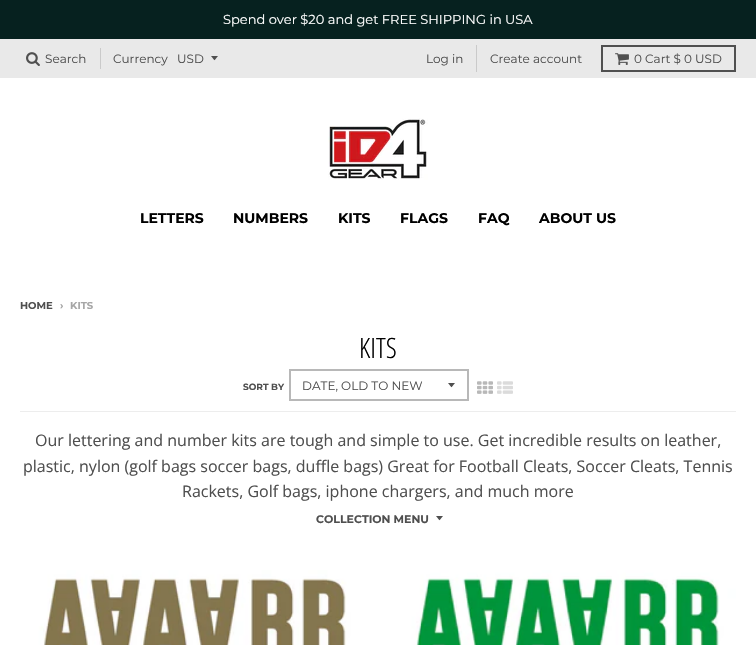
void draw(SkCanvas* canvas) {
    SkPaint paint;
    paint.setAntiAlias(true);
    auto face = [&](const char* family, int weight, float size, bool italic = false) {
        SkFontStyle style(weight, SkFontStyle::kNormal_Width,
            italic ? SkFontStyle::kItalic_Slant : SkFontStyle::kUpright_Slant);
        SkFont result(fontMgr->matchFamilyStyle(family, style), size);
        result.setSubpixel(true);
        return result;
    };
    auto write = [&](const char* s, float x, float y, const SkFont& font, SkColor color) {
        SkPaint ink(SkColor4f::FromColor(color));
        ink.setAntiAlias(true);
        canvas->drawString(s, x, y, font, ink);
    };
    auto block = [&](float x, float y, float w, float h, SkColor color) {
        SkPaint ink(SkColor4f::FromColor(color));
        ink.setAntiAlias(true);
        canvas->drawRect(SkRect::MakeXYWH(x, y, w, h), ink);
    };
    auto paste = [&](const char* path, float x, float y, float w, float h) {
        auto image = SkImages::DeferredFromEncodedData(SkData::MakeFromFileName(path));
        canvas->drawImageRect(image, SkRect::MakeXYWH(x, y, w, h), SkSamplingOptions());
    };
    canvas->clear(SK_ColorWHITE);
    block(0, 0, 756, 39, SkColorSetRGB(6, 33, 31));
    auto kFont1 = face("Montserrat", 400, 13);
    write("Spend over $20 and get FREE SHIPPING in USA", 223, 24, kFont1, SK_ColorWHITE);
    block(0, 39, 756, 39, SkColorSetRGB(233, 233, 233));
    paste("pic1.png", 26, 52, 14, 14);
    auto kFont2 = face("Montserrat", 400, 12);
    write("Search", 45, 63, kFont2, SkColorSetRGB(79, 79, 79));
    block(100, 48, 1, 21, SkColorSetRGB(202, 202, 202));
    write("Currency", 113, 63, kFont2, SkColorSetRGB(79, 79, 79));
    paint.setColor(SkColorSetRGB(80, 80, 80));
    canvas->drawPath(SkPathBuilder().moveTo(211, 56).cubicTo(215.5f, 61.5f, 213.5f, 61.5f, 218, 56).close().detach(), paint);
    write("USD", 177, 63, kFont2, SkColorSetRGB(79, 79, 79));
    block(476, 45, 1, 27, SkColorSetRGB(202, 202, 202));
    write("Log in", 426, 63, kFont2, SkColorSetRGB(79, 79, 79));
    write("Create account", 490, 63, kFont2, SkColorSetRGB(79, 79, 79));
    paint.setStyle(SkPaint::kStroke_Style);
    paint.setStrokeWidth(2);
    canvas->drawRect(SkRect::MakeXYWH(602, 46, 133, 25), paint);
    paste("pic2.png", 615, 53, 14, 12);
    write("0 Cart $ 0 USD", 634, 63, kFont2, SkColorSetRGB(79, 79, 79));
    paste("pic3.png", 328, 118, 100, 62);
    auto kFont3 = face("Montserrat", 700, 14);
    write("LETTERS", 140, 223, kFont3, SK_ColorBLACK);
    write("NUMBERS", 233, 223, kFont3, SK_ColorBLACK);
    write("KITS", 338, 223, kFont3, SK_ColorBLACK);
    write("FLAGS", 400, 223, kFont3, SK_ColorBLACK);
    write("FAQ", 478, 223, kFont3, SK_ColorBLACK);
    write("ABOUT US", 539, 223, kFont3, SK_ColorBLACK);
    auto kFont4 = face("Montserrat", 700, 10);
    write("HOME", 20, 309, kFont4, SkColorSetRGB(79, 79, 79));
    write("›", 60, 309, kFont4, SkColorSetRGB(167, 167, 167));
    write("KITS", 70, 309, kFont4, SkColorSetRGB(167, 167, 167));
    block(20, 411, 716, 1, SkColorSetRGB(237, 237, 237));
    auto kFont5 = face("Open Sans Condensed", 300, 28);
    write("KITS", 359, 358, kFont5, SK_ColorBLACK);
    auto kFont6 = face("Montserrat", 700, 9);
    write("SORT BY", 243, 390, kFont6, SkColorSetRGB(79, 79, 79));
    paint.setStyle(SkPaint::kFill_Style);
    paint.setColor(SkColorSetRGB(79, 79, 79));
    canvas->drawPath(SkPathBuilder().moveTo(448, 383).cubicTo(452.5f, 388.5f, 450.5f, 388.5f, 455, 383).close().detach(), paint);
    paint.setStyle(SkPaint::kStroke_Style);
    paint.setColor(SkColorSetRGB(184, 184, 184));
    canvas->drawRect(SkRect::MakeXYWH(290, 370, 178, 30), paint);
    write("DATE, OLD TO NEW", 302, 390, kFont2, SkColorSetRGB(79, 79, 79));
    paste("pic4.png", 477, 381, 16, 13);
    paste("pic5.png", 497, 381, 16, 13);
    auto kFont7 = face("Open Sans", 400, 16);
    write("Our lettering and number kits are tough and simple to use. Get incredible results on leather,", 35, 446, kFont7, SkColorSetRGB(79, 79, 79));
    write("plastic, nylon (golf bags soccer bags, duffle bags) Great for Football Cleats, Soccer Cleats, Tennis", 23, 472, kFont7, SkColorSetRGB(79, 79, 79));
    write("Rackets, Golf bags, iphone chargers, and much more", 182, 497, kFont7, SkColorSetRGB(79, 79, 79));
    auto kFont8 = face("Montserrat", 700, 11);
    write("COLLECTION MENU", 316, 523, kFont8, SkColorSetRGB(79, 79, 79));
    paint.setStyle(SkPaint::kFill_Style);
    paint.setColor(SkColorSetRGB(79, 79, 79));
    canvas->drawPath(SkPathBuilder().moveTo(436, 516).cubicTo(440.5f, 521.5f, 438.5f, 521.5f, 443, 516).close().detach(), paint);
    paste("pic6.png", 20, 561, 343, 84);
    paste("pic7.png", 393, 561, 343, 84);
}
